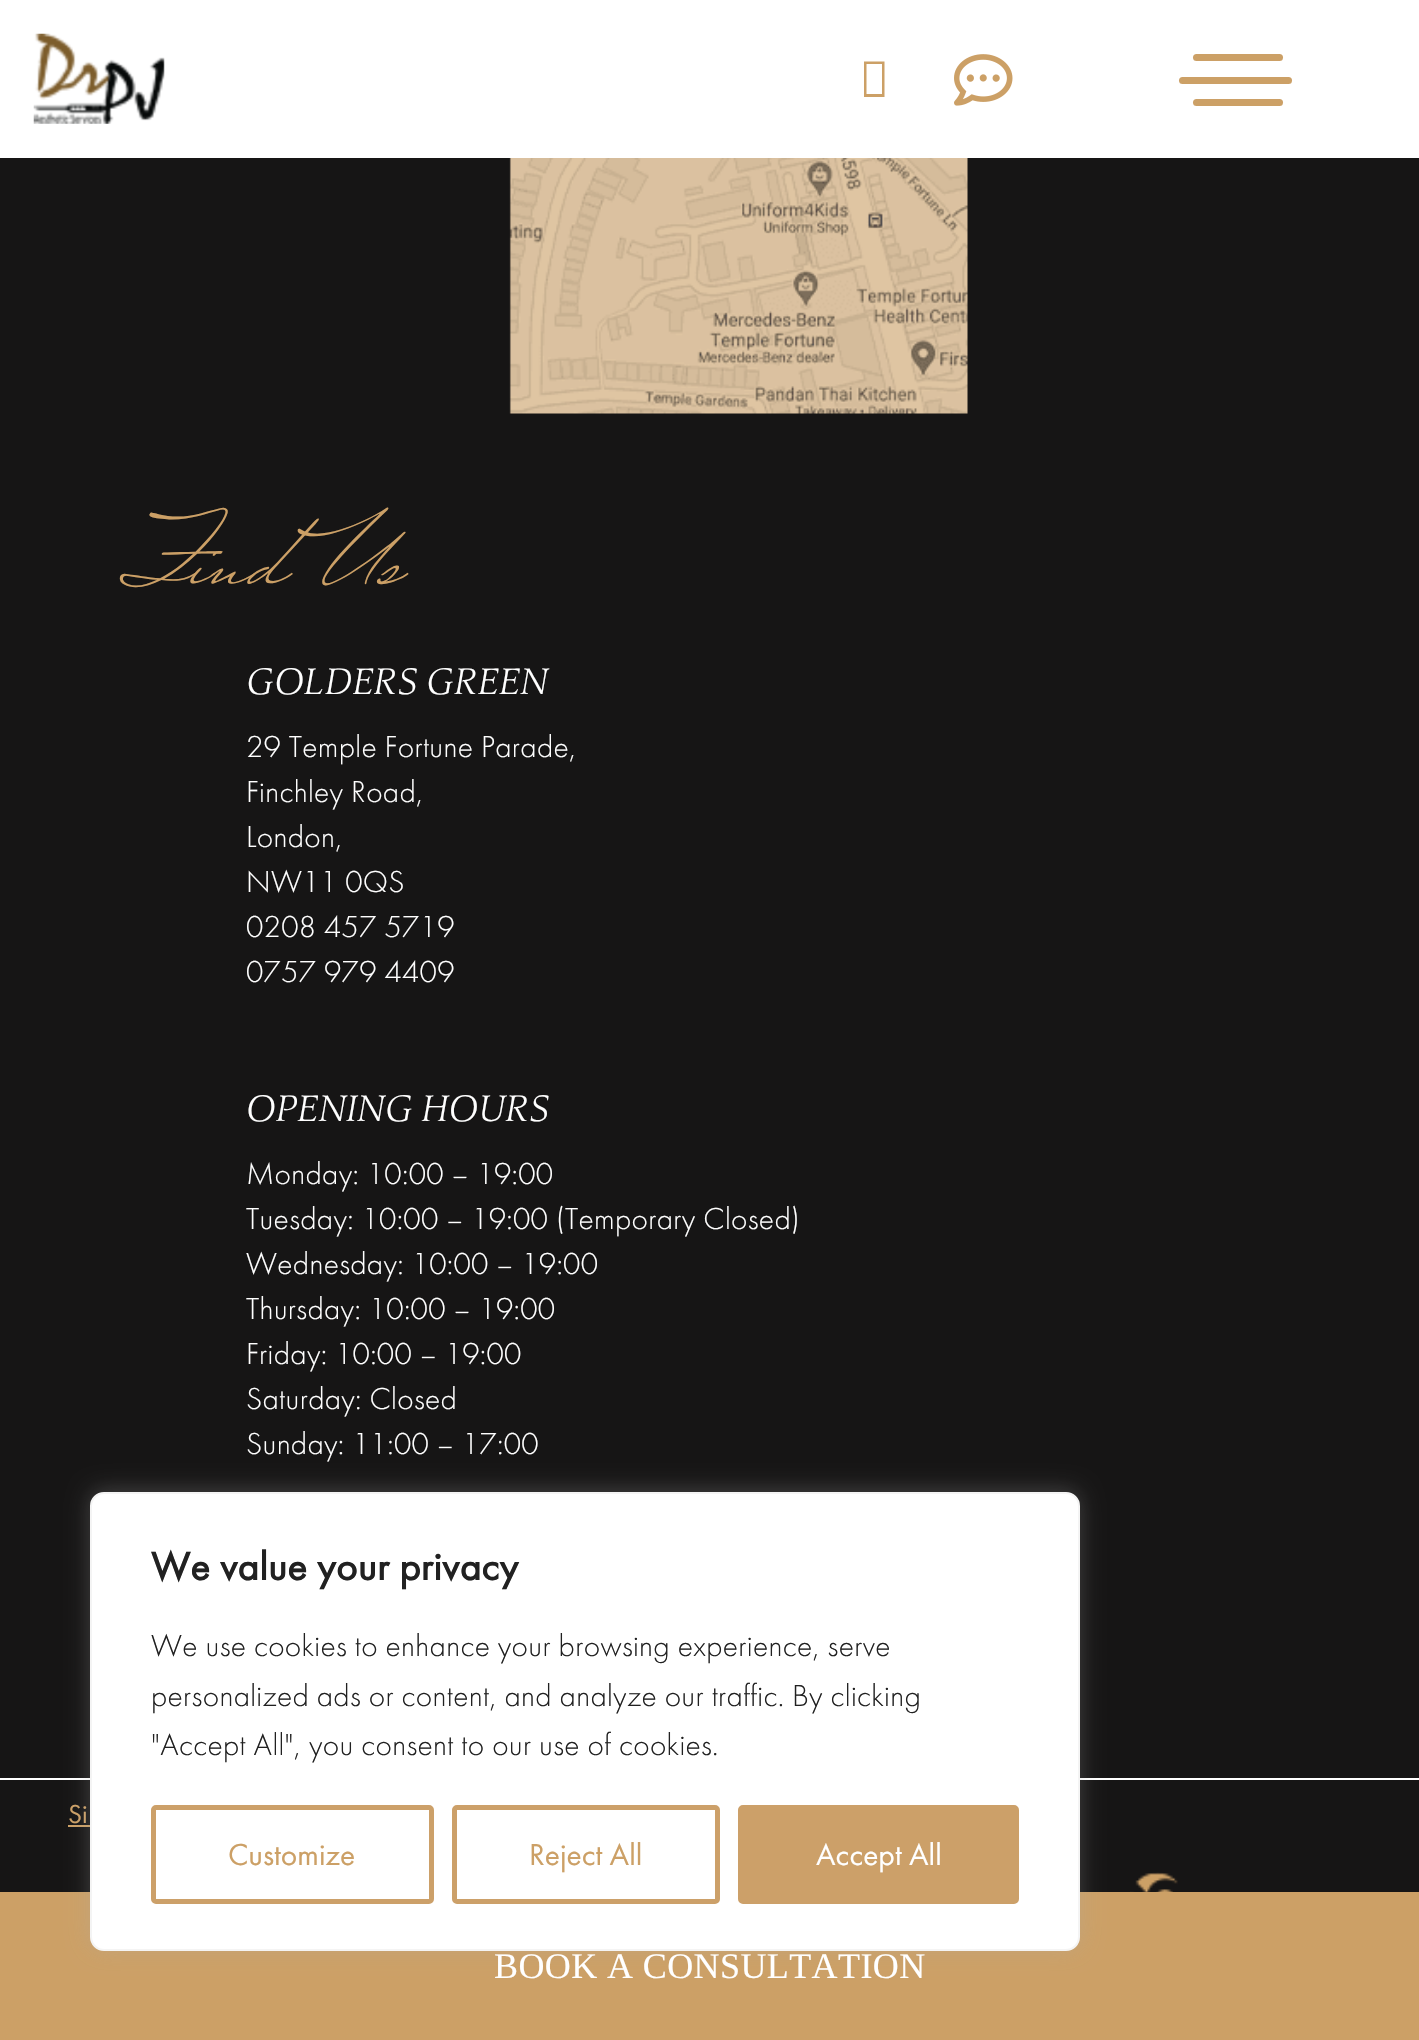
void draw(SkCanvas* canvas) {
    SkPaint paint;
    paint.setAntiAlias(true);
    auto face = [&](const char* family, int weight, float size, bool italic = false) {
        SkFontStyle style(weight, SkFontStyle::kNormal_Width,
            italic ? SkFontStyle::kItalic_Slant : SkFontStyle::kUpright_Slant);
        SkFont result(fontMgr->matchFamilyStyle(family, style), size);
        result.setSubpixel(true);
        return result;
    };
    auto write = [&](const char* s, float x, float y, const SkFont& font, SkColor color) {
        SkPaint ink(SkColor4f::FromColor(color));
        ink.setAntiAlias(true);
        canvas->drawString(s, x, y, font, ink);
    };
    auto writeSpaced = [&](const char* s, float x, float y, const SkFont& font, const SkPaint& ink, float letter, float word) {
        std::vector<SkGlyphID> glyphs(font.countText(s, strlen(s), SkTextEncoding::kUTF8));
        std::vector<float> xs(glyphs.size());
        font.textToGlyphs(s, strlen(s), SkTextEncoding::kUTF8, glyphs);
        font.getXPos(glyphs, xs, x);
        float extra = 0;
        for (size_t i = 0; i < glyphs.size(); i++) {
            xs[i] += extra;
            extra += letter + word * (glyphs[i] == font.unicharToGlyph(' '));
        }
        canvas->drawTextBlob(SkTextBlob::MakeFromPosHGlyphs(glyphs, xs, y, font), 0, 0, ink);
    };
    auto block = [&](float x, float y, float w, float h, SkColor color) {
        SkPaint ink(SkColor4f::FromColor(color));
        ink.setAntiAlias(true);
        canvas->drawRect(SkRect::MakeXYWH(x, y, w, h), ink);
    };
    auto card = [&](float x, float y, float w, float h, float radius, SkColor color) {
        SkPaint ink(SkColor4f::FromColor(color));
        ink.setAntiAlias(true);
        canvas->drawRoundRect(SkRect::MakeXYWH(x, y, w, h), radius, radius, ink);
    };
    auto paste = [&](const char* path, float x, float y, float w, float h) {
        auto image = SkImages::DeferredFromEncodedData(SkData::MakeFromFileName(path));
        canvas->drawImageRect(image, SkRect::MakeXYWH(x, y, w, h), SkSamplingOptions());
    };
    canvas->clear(SkColorSetRGB(22, 21, 21));
    block(0, 0, 1419, 158, SK_ColorWHITE);
    paste("pic1.png", 33, 33, 132, 91);
    paint.setColor(SkColorSetRGB(204, 160, 102));
    canvas->drawPath(SkPathBuilder().moveTo(864, 97).lineTo(864, 61.5f).lineTo(884.5f, 61.5f).lineTo(884.5f, 97).close().moveTo(866.5f, 94).lineTo(882, 94).lineTo(882, 64).lineTo(866.5f, 64).close().detach(), paint);
    paste("pic2.png", 954, 54, 59, 52);
    card(1193, 99, 90, 7, 3.5f, SkColorSetRGB(204, 160, 102));
    card(1193, 54, 90, 7, 3.5f, SkColorSetRGB(204, 160, 102));
    card(1179, 77, 113, 7, 3.5f, SkColorSetRGB(204, 160, 102));
    paste("pic3.png", 509, 158, 459, 256);
    auto kFont1 = face("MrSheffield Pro", 400, 108, true);
    write("Find Us", 123, 583, kFont1, SkColorSetRGB(204, 160, 102));
    auto kFont2 = face("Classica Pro", 300, 36, true);
    paint.setColor(SK_ColorWHITE);
    writeSpaced("GOLDERS GREEN", 246, 694, kFont2, paint, 0.4f, 0);
    auto kFont3 = face("Futura PT", 300, 31.5f);
    writeSpaced("29 Temple Fortune Parade,", 246, 757, kFont3, paint, 0.32f, 0);
    writeSpaced("Finchley Road,", 246, 802, kFont3, paint, 0.32f, 0);
    writeSpaced("London,", 246, 847, kFont3, paint, 0.32f, 0);
    writeSpaced("NW11 0QS", 246, 892, kFont3, paint, 0.32f, 0);
    writeSpaced("0208 457 5719", 246, 937, kFont3, paint, 0.32f, 0);
    writeSpaced("0757 979 4409", 246, 982, kFont3, paint, 0.32f, 0);
    writeSpaced("OPENING HOURS", 246, 1121, kFont2, paint, 0.4f, 0);
    writeSpaced("Monday: 10:00 – 19:00", 246, 1184, kFont3, paint, 0.32f, 0);
    writeSpaced("Tuesday: 10:00 – 19:00 (Temporary Closed)", 246, 1229, kFont3, paint, 0.32f, 0);
    writeSpaced("Wednesday: 10:00 – 19:00", 246, 1274, kFont3, paint, 0.32f, 0);
    writeSpaced("Thursday: 10:00 – 19:00", 246, 1319, kFont3, paint, 0.32f, 0);
    writeSpaced("Friday: 10:00 – 19:00", 246, 1364, kFont3, paint, 0.32f, 0);
    writeSpaced("Saturday: Closed", 246, 1409, kFont3, paint, 0.32f, 0);
    writeSpaced("Sunday: 11:00 – 17:00", 246, 1454, kFont3, paint, 0.32f, 0);
    block(0, 1778, 1419, 2, SK_ColorWHITE);
    auto kFont4 = face("Futura PT", 400, 27);
    write("Si", 68, 1823, kFont4, SkColorSetRGB(204, 160, 102));
    block(68, 1825, 22, 2, SkColorSetRGB(204, 160, 102));
    paste("pic4.png", 1130, 1872, 48, 20);
    block(0, 1892, 1419, 148, SkColorSetRGB(204, 160, 102));
    paint.setColor(SkColorSetARGB(77, 172, 171, 171));
    paint.setMaskFilter(SkMaskFilter::MakeBlur(kNormal_SkBlurStyle, 11));
    canvas->drawRoundRect(SkRect::MakeXYWH(90, 1490, 990, 459), 14, 14, paint);
    paint.setMaskFilter(nullptr);
    paint.setColor(SK_ColorWHITE);
    canvas->drawRoundRect(SkRect::MakeXYWH(91, 1493, 988, 457), 13, 13, paint);
    paint.setStyle(SkPaint::kStroke_Style);
    paint.setStrokeWidth(2);
    paint.setColor(SkColorSetRGB(244, 244, 244));
    canvas->drawRoundRect(SkRect::MakeXYWH(91, 1493, 988, 457), 13, 13, paint);
    auto kFont5 = face("Futura PT", 700, 40.5f);
    paint.setStyle(SkPaint::kFill_Style);
    paint.setColor(SkColorSetRGB(33, 33, 33));
    writeSpaced("We value your privacy", 151, 1580, kFont5, paint, 0.4f, 0);
    writeSpaced("We use cookies to enhance your browsing experience, serve", 151, 1656, kFont3, paint, 0.32f, 0);
    writeSpaced("personalized ads or content, and analyze our traffic. By clicking", 151, 1706, kFont3, paint, 0.32f, 0);
    writeSpaced("\"Accept All\", you consent to our use of cookies.", 151, 1755, kFont3, paint, 0.32f, 0);
    paint.setStyle(SkPaint::kStroke_Style);
    paint.setStrokeWidth(5);
    paint.setColor(SkColorSetRGB(204, 160, 105));
    canvas->drawRoundRect(SkRect::MakeXYWH(153.5f, 1807.5f, 278, 94), 2.5f, 2.5f, paint);
    auto kFont6 = face("Futura PT", 400, 31.5f);
    write("Customize", 228, 1865, kFont6, SkColorSetRGB(204, 160, 102));
    canvas->drawRoundRect(SkRect::MakeXYWH(454.5f, 1807.5f, 263, 94), 2.5f, 2.5f, paint);
    write("Reject All", 529, 1865, kFont6, SkColorSetRGB(204, 160, 102));
    paint.setStyle(SkPaint::kFill_Style);
    canvas->drawRoundRect(SkRect::MakeXYWH(740.5f, 1807.5f, 276, 94), 2.5f, 2.5f, paint);
    paint.setStyle(SkPaint::kStroke_Style);
    canvas->drawRoundRect(SkRect::MakeXYWH(740.5f, 1807.5f, 276, 94), 2.5f, 2.5f, paint);
    write("Accept All", 816, 1865, kFont6, SK_ColorWHITE);
    auto kFont7 = face("Liberation Serif", 400, 36);
    paint.setStyle(SkPaint::kFill_Style);
    paint.setColor(SK_ColorWHITE);
    writeSpaced("BOOK A CONSULTATION", 494, 1978, kFont7, paint, 0.4f, 0);
}
